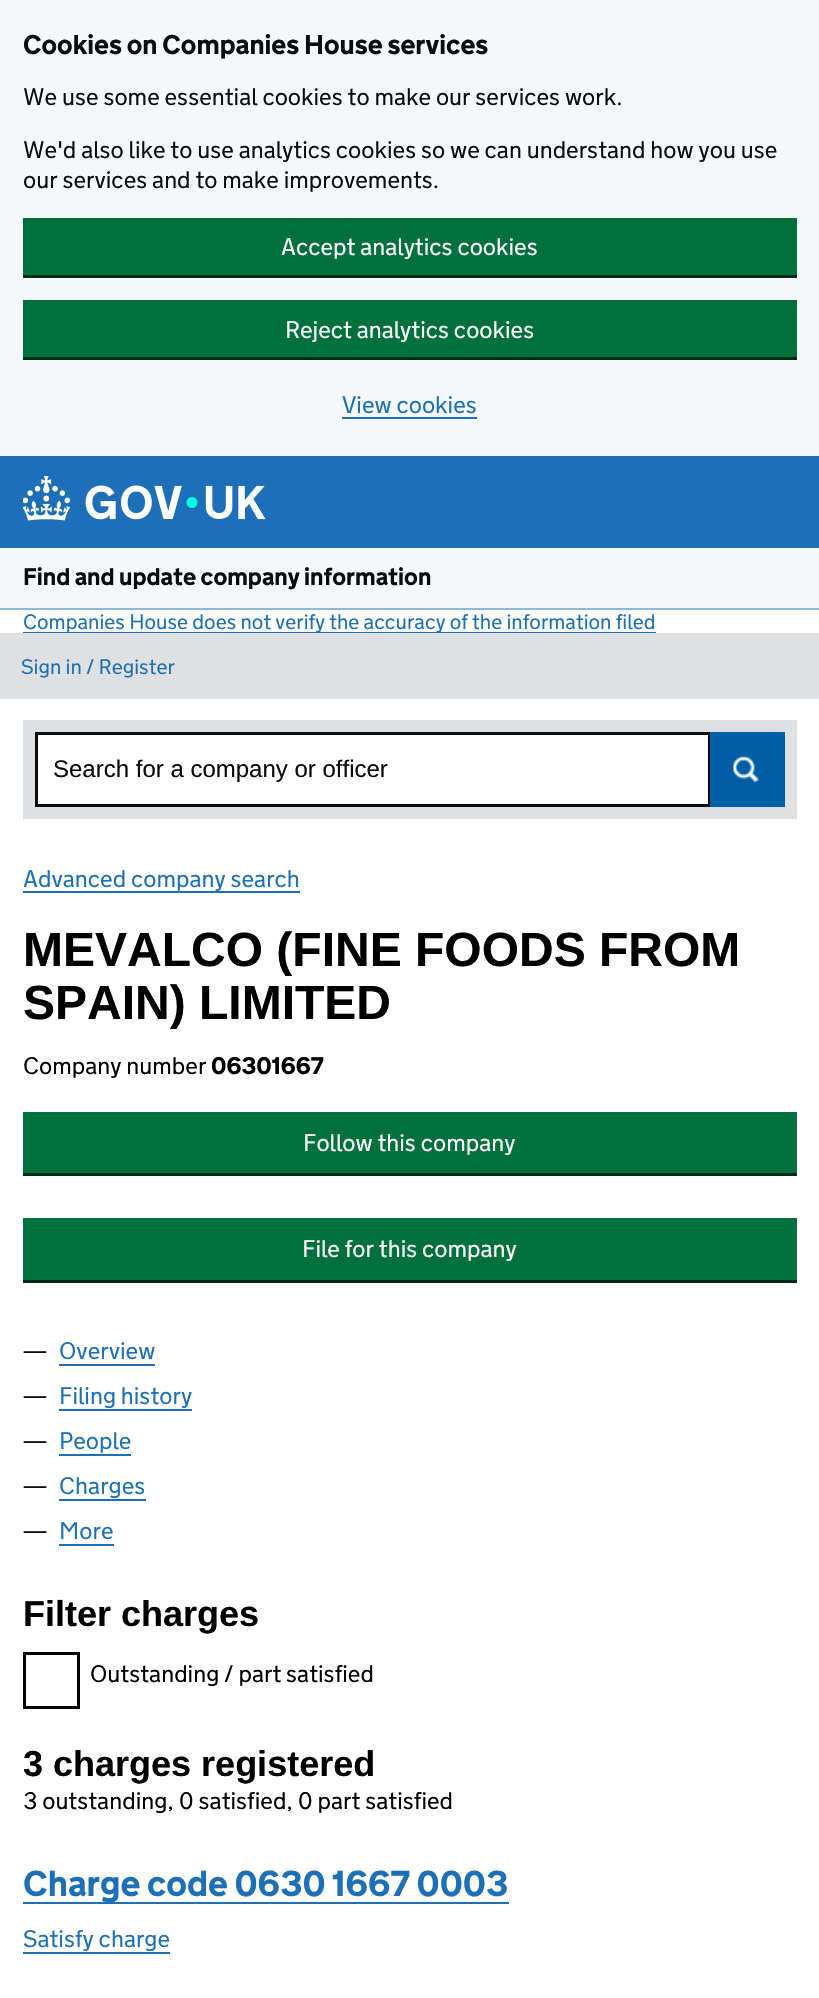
void draw(SkCanvas* canvas) {
    SkPaint paint;
    paint.setAntiAlias(true);
    auto face = [&](const char* family, int weight, float size, bool italic = false) {
        SkFontStyle style(weight, SkFontStyle::kNormal_Width,
            italic ? SkFontStyle::kItalic_Slant : SkFontStyle::kUpright_Slant);
        SkFont result(fontMgr->matchFamilyStyle(family, style), size);
        result.setSubpixel(true);
        return result;
    };
    auto write = [&](const char* s, float x, float y, const SkFont& font, SkColor color) {
        SkPaint ink(SkColor4f::FromColor(color));
        ink.setAntiAlias(true);
        canvas->drawString(s, x, y, font, ink);
    };
    auto block = [&](float x, float y, float w, float h, SkColor color) {
        SkPaint ink(SkColor4f::FromColor(color));
        ink.setAntiAlias(true);
        canvas->drawRect(SkRect::MakeXYWH(x, y, w, h), ink);
    };
    auto paste = [&](const char* path, float x, float y, float w, float h) {
        auto image = SkImages::DeferredFromEncodedData(SkData::MakeFromFileName(path));
        canvas->drawImageRect(image, SkRect::MakeXYWH(x, y, w, h), SkSamplingOptions());
    };
    canvas->clear(SK_ColorWHITE);
    block(0, 0, 819, 456, SkColorSetRGB(244, 248, 251));
    auto kFont1 = face("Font", 700, 27);
    write("Cookies on Companies House services", 23, 54, kFont1, SkColorSetRGB(11, 12, 12));
    auto kFont2 = face("Font", 300, 24);
    write("We use some essential cookies to make our services work.", 23, 105, kFont2, SkColorSetRGB(11, 12, 12));
    write("We'd also like to use analytics cookies so we can understand how you use", 23, 158, kFont2, SkColorSetRGB(11, 12, 12));
    write("our services and to make improvements.", 23, 188, kFont2, SkColorSetRGB(11, 12, 12));
    paint.setColor(SkColorSetRGB(0, 45, 24));
    canvas->drawPath(SkPathBuilder().moveTo(23, 274).lineTo(23, 278).lineTo(797, 278).lineTo(797, 221).lineTo(796, 221).lineTo(796, 274).close().detach(), paint);
    block(23, 218, 774, 57, SkColorSetRGB(0, 112, 60));
    write("Accept analytics cookies", 281, 255, kFont2, SK_ColorWHITE);
    canvas->drawPath(SkPathBuilder().moveTo(23, 357).lineTo(23, 360).lineTo(797, 360).lineTo(797, 303).lineTo(796, 303).lineTo(796, 357).close().detach(), paint);
    block(23, 300, 774, 57, SkColorSetRGB(0, 112, 60));
    write("Reject analytics cookies", 285, 338, kFont2, SK_ColorWHITE);
    write("View cookies", 342, 413, kFont2, SkColorSetRGB(29, 112, 184));
    block(342, 417, 135, 2, SkColorSetRGB(29, 112, 184));
    block(0, 456, 819, 92, SkColorSetRGB(29, 112, 184));
    paste("pic1.png", 23, 476, 243, 45);
    block(0, 548, 819, 60, SkColorSetRGB(244, 248, 251));
    block(0, 608, 819, 2, SkColorSetRGB(142, 184, 220));
    auto kFont3 = face("Font", 700, 24);
    write("Find and update company information", 23, 585, kFont3, SkColorSetRGB(11, 12, 12));
    block(23, 632, 633, 1, SkColorSetRGB(29, 112, 184));
    auto kFont4 = face("Font", 300, 21);
    write("Companies House does not verify the accuracy of the information filed", 23, 629, kFont4, SkColorSetRGB(29, 112, 184));
    block(0, 633, 819, 66, SkColorSetRGB(222, 224, 226));
    write("Sign in / Register", 21, 674, kFont4, SkColorSetRGB(29, 112, 184));
    block(23, 720, 774, 99, SkColorSetRGB(222, 224, 226));
    paint.setColor(SK_ColorWHITE);
    canvas->drawRect(SkRect::MakeXYWH(36.5f, 733.5f, 673, 72), paint);
    paint.setStyle(SkPaint::kStroke_Style);
    paint.setStrokeWidth(3);
    paint.setColor(SkColorSetRGB(11, 12, 12));
    canvas->drawRect(SkRect::MakeXYWH(36.5f, 733.5f, 673, 72), paint);
    auto kFont5 = face("Liberation Sans", 400, 24);
    write("Search for a company or officer", 53, 777, kFont5, SkColorSetRGB(11, 12, 12));
    block(710, 732, 75, 75, SkColorSetRGB(0, 94, 165));
    paste("pic2.png", 733, 755, 27, 28);
    write("Advanced company search", 23, 887, kFont2, SkColorSetRGB(29, 112, 184));
    block(23, 891, 277, 2, SkColorSetRGB(29, 112, 184));
    auto kFont6 = face("Liberation Sans", 700, 48);
    write("MEVALCO (FINE FOODS FROM", 23, 966, kFont6, SK_ColorBLACK);
    write("SPAIN) LIMITED", 23, 1019, kFont6, SK_ColorBLACK);
    write("Company number", 23, 1074, kFont2, SK_ColorBLACK);
    write("06301667", 211, 1074, kFont3, SK_ColorBLACK);
    paint.setStyle(SkPaint::kFill_Style);
    paint.setColor(SkColorSetRGB(0, 45, 24));
    canvas->drawPath(SkPathBuilder().moveTo(23, 1173).lineTo(23, 1176).lineTo(797, 1176).lineTo(797, 1115).lineTo(796, 1115).lineTo(796, 1173).close().detach(), paint);
    block(23, 1112, 774, 61, SkColorSetRGB(0, 112, 60));
    write("Follow this company", 303, 1151, kFont2, SK_ColorWHITE);
    canvas->drawPath(SkPathBuilder().moveTo(23, 1280).lineTo(23, 1283).lineTo(797, 1283).lineTo(797, 1221).lineTo(796, 1221).lineTo(796, 1280).close().detach(), paint);
    block(23, 1218, 774, 62, SkColorSetRGB(0, 112, 60));
    write("File for this company", 302, 1257, kFont2, SK_ColorWHITE);
    write("—", 23, 1359, kFont2, SkColorSetRGB(11, 12, 12));
    write("Overview", 59, 1359, kFont2, SkColorSetRGB(29, 112, 184));
    block(59, 1364, 96, 2, SkColorSetRGB(29, 112, 184));
    write("—", 23, 1404, kFont2, SkColorSetRGB(11, 12, 12));
    write("Filing history", 59, 1404, kFont2, SkColorSetRGB(29, 112, 184));
    block(59, 1409, 133, 2, SkColorSetRGB(29, 112, 184));
    write("—", 23, 1449, kFont2, SkColorSetRGB(11, 12, 12));
    write("People", 59, 1449, kFont2, SkColorSetRGB(29, 112, 184));
    block(59, 1454, 72, 2, SkColorSetRGB(29, 112, 184));
    write("—", 23, 1494, kFont2, SkColorSetRGB(11, 12, 12));
    write("Charges", 59, 1494, kFont2, SkColorSetRGB(29, 112, 184));
    block(59, 1499, 87, 2, SkColorSetRGB(29, 112, 184));
    write("—", 23, 1539, kFont2, SkColorSetRGB(11, 12, 12));
    write("More", 59, 1539, kFont2, SkColorSetRGB(29, 112, 184));
    block(59, 1544, 55, 2, SkColorSetRGB(29, 112, 184));
    auto kFont7 = face("Liberation Sans", 700, 36);
    write("Filter charges", 23, 1626, kFont7, SK_ColorBLACK);
    paint.setStyle(SkPaint::kStroke_Style);
    paint.setColor(SK_ColorBLACK);
    canvas->drawRect(SkRect::MakeXYWH(24.5f, 1653.5f, 54, 54), paint);
    write("Outstanding / part satisfied", 90, 1682, kFont2, SK_ColorBLACK);
    write("3 charges registered", 23, 1776, kFont7, SK_ColorBLACK);
    write("3 outstanding, 0 satisfied, 0 part satisfied", 23, 1809, kFont2, SK_ColorBLACK);
    block(23, 1902, 486, 2, SkColorSetRGB(29, 112, 184));
    auto kFont8 = face("Font", 700, 36);
    write("Charge code 0630 1667 0003", 23, 1896, kFont8, SkColorSetRGB(29, 112, 184));
    write("Satisfy charge", 23, 1947, kFont2, SkColorSetRGB(29, 112, 184));
    block(23, 1952, 147, 2, SkColorSetRGB(29, 112, 184));
}
